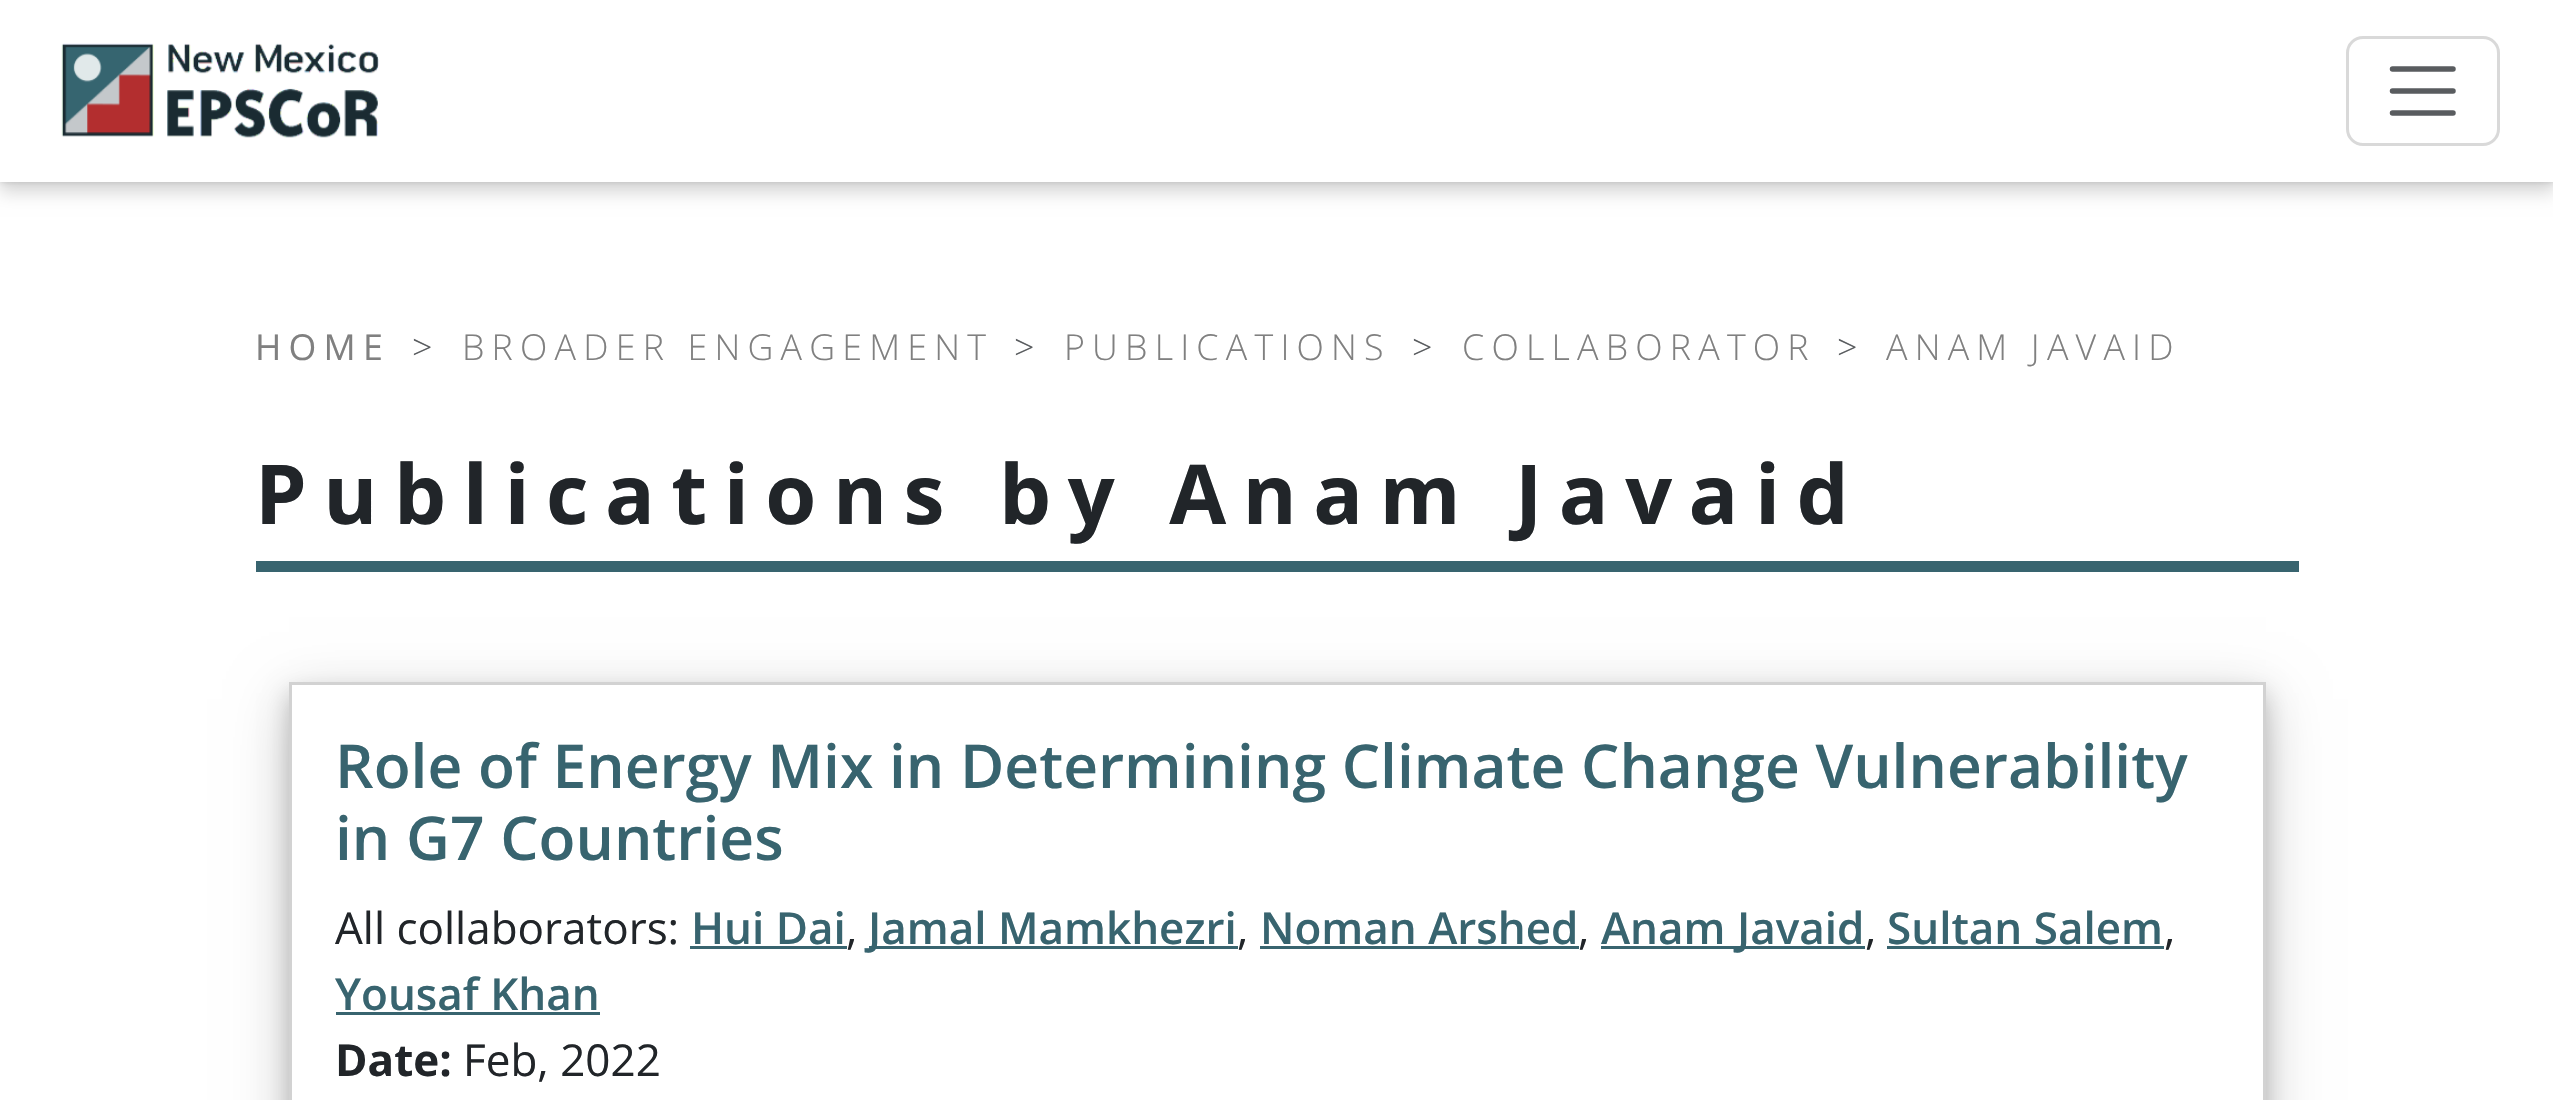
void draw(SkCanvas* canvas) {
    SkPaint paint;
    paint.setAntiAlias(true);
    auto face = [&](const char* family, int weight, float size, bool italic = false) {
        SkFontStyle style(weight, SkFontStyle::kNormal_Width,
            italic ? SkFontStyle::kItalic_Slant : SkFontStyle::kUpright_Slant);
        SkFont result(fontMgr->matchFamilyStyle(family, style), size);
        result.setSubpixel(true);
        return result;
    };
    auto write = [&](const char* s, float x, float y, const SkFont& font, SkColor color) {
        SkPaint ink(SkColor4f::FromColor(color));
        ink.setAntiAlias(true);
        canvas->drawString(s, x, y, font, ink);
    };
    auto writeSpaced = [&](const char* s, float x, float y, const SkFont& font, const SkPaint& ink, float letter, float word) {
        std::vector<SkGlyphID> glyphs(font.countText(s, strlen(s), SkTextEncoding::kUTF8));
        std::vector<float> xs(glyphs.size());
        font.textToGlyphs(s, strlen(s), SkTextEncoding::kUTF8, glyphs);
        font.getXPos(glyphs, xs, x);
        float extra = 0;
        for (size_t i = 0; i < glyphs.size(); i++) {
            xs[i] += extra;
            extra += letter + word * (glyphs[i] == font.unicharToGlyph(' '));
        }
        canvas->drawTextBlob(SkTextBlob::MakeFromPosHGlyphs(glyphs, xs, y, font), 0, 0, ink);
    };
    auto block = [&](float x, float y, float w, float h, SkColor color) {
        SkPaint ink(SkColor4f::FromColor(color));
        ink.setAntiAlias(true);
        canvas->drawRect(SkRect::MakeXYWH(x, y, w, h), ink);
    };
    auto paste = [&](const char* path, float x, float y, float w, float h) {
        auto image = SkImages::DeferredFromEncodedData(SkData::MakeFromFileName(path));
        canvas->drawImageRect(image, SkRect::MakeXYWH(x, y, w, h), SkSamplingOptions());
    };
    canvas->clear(SK_ColorWHITE);
    paint.setColor(SkColorSetARGB(38, 0, 0, 0));
    paint.setMaskFilter(SkMaskFilter::MakeBlur(kNormal_SkBlurStyle, 3));
    canvas->drawRect(SkRect::MakeXYWH(0, 0, 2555, 182), paint);
    paint.setMaskFilter(nullptr);
    paint.setMaskFilter(SkMaskFilter::MakeBlur(kNormal_SkBlurStyle, 8));
    canvas->drawRect(SkRect::MakeXYWH(0, 11, 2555, 182), paint);
    paint.setMaskFilter(nullptr);
    block(0, 0, 2553, 182, SK_ColorWHITE);
    paste("pic1.png", 61, 43, 318, 95);
    paint.setStyle(SkPaint::kStroke_Style);
    paint.setStrokeWidth(3);
    paint.setColor(SkColorSetRGB(217, 217, 217));
    canvas->drawRoundRect(SkRect::MakeXYWH(2347.5f, 37.5f, 151, 107), 15.5f, 15.5f, paint);
    paint.setStrokeWidth(5.5f);
    paint.setStrokeCap(SkPaint::kRound_Cap);
    paint.setColor(SkColorSetRGB(89, 92, 95));
    canvas->drawPath(SkPathBuilder().moveTo(2392.5f, 69).lineTo(2453, 69).moveTo(2392.5f, 91).lineTo(2453, 91).moveTo(2392.5f, 113).lineTo(2453, 113).detach(), paint);
    auto kFont1 = face("Open Sans", 400, 35.75f);
    paint.setStyle(SkPaint::kFill_Style);
    paint.setColor(SkColorSetRGB(128, 128, 128));
    writeSpaced("HOME", 255, 360, kFont1, paint, 7.2f, 0);
    auto kFont2 = face("Open Sans", 300, 35.75f);
    paint.setColor(SkColorSetRGB(89, 92, 95));
    writeSpaced(">", 412, 360, kFont2, paint, 7.2f, 0);
    paint.setColor(SkColorSetRGB(128, 128, 128));
    writeSpaced("BROADER ENGAGEMENT", 462, 360, kFont2, paint, 7.2f, 0);
    paint.setColor(SkColorSetRGB(89, 92, 95));
    writeSpaced(">", 1014, 360, kFont2, paint, 7.2f, 0);
    paint.setColor(SkColorSetRGB(128, 128, 128));
    writeSpaced("PUBLICATIONS", 1064, 360, kFont2, paint, 7.2f, 0);
    paint.setColor(SkColorSetRGB(89, 92, 95));
    writeSpaced(">", 1412, 360, kFont2, paint, 7.2f, 0);
    paint.setColor(SkColorSetRGB(128, 128, 128));
    writeSpaced("COLLABORATOR", 1462, 360, kFont2, paint, 7.2f, 0);
    paint.setColor(SkColorSetRGB(89, 92, 95));
    writeSpaced(">", 1837, 360, kFont2, paint, 7.2f, 0);
    paint.setColor(SkColorSetRGB(128, 128, 128));
    writeSpaced("ANAM JAVAID", 1886, 360, kFont2, paint, 7.2f, 0);
    block(256, 561, 2043, 11, SkColorSetRGB(56, 100, 111));
    auto kFont3 = face("Open Sans", 700, 82.5f);
    paint.setColor(SkColorSetRGB(33, 37, 41));
    writeSpaced("Publications by Anam Javaid", 255, 524, kFont3, paint, 16.5f, 0);
    canvas->save();
    canvas->clipPath(SkPathBuilder(SkPathFillType::kEvenOdd).moveTo(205, 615).lineTo(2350, 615).lineTo(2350, 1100).lineTo(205, 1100).close().moveTo(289, 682).lineTo(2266, 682).lineTo(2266, 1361).lineTo(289, 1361).close().detach(), true);
    paint.setColor(SkColorSetARGB(48, 0, 0, 0));
    paint.setMaskFilter(SkMaskFilter::MakeBlur(kNormal_SkBlurStyle, 27.5f));
    canvas->drawRect(SkRect::MakeXYWH(289, 699, 1977, 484), paint);
    paint.setMaskFilter(nullptr);
    canvas->restore();
    canvas->save();
    canvas->clipPath(SkPathBuilder(SkPathFillType::kEvenOdd).moveTo(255, 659).lineTo(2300, 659).lineTo(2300, 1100).lineTo(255, 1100).close().moveTo(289, 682).lineTo(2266, 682).lineTo(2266, 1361).lineTo(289, 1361).close().detach(), true);
    paint.setColor(SkColorSetARGB(51, 0, 0, 0));
    paint.setMaskFilter(SkMaskFilter::MakeBlur(kNormal_SkBlurStyle, 11));
    canvas->drawRect(SkRect::MakeXYWH(289, 693, 1977, 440), paint);
    paint.setMaskFilter(nullptr);
    canvas->restore();
    paint.setStyle(SkPaint::kStroke_Style);
    paint.setStrokeWidth(3);
    paint.setStrokeCap(SkPaint::kButt_Cap);
    paint.setColor(SkColorSetRGB(210, 210, 210));
    canvas->drawRect(SkRect::MakeXYWH(290.5f, 683.5f, 1974, 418), paint);
    auto kFont4 = face("Open Sans", 600, 60.5f);
    write("Role of Energy Mix in Determining Climate Change Vulnerability", 335, 788, kFont4, SkColorSetRGB(56, 100, 111));
    write("in G7 Countries", 335, 860, kFont4, SkColorSetRGB(56, 100, 111));
    auto kFont5 = face("Open Sans", 400, 44);
    write("All collaborators:", 335, 944, kFont5, SkColorSetRGB(33, 37, 41));
    auto kFont6 = face("Open Sans", 600, 44);
    write("Hui Dai", 691, 944, kFont6, SkColorSetRGB(56, 100, 111));
    write(",", 846, 944, kFont5, SkColorSetRGB(33, 37, 41));
    block(690, 946, 157, 3, SkColorSetRGB(56, 100, 111));
    block(869, 946, 369, 3, SkColorSetRGB(56, 100, 111));
    write("Jamal Mamkhezri", 868, 944, kFont6, SkColorSetRGB(56, 100, 111));
    write(",", 1237, 944, kFont5, SkColorSetRGB(33, 37, 41));
    write("Noman Arshed", 1260, 944, kFont6, SkColorSetRGB(56, 100, 111));
    write(",", 1578, 944, kFont5, SkColorSetRGB(33, 37, 41));
    block(1260, 946, 319, 3, SkColorSetRGB(56, 100, 111));
    block(1601, 946, 264, 3, SkColorSetRGB(56, 100, 111));
    write("Anam Javaid", 1601, 944, kFont6, SkColorSetRGB(56, 100, 111));
    write(",", 1865, 944, kFont5, SkColorSetRGB(33, 37, 41));
    write("Sultan Salem", 1887, 944, kFont6, SkColorSetRGB(56, 100, 111));
    write(",", 2164, 944, kFont5, SkColorSetRGB(33, 37, 41));
    block(1887, 946, 277, 3, SkColorSetRGB(56, 100, 111));
    write("Yousaf Khan", 335, 1010, kFont6, SkColorSetRGB(56, 100, 111));
    block(336, 1012, 264, 3, SkColorSetRGB(56, 100, 111));
    auto kFont7 = face("Open Sans", 700, 44);
    write("Date:", 335, 1076, kFont7, SkColorSetRGB(33, 37, 41));
    write("Feb, 2022", 463, 1076, kFont5, SkColorSetRGB(33, 37, 41));
}
